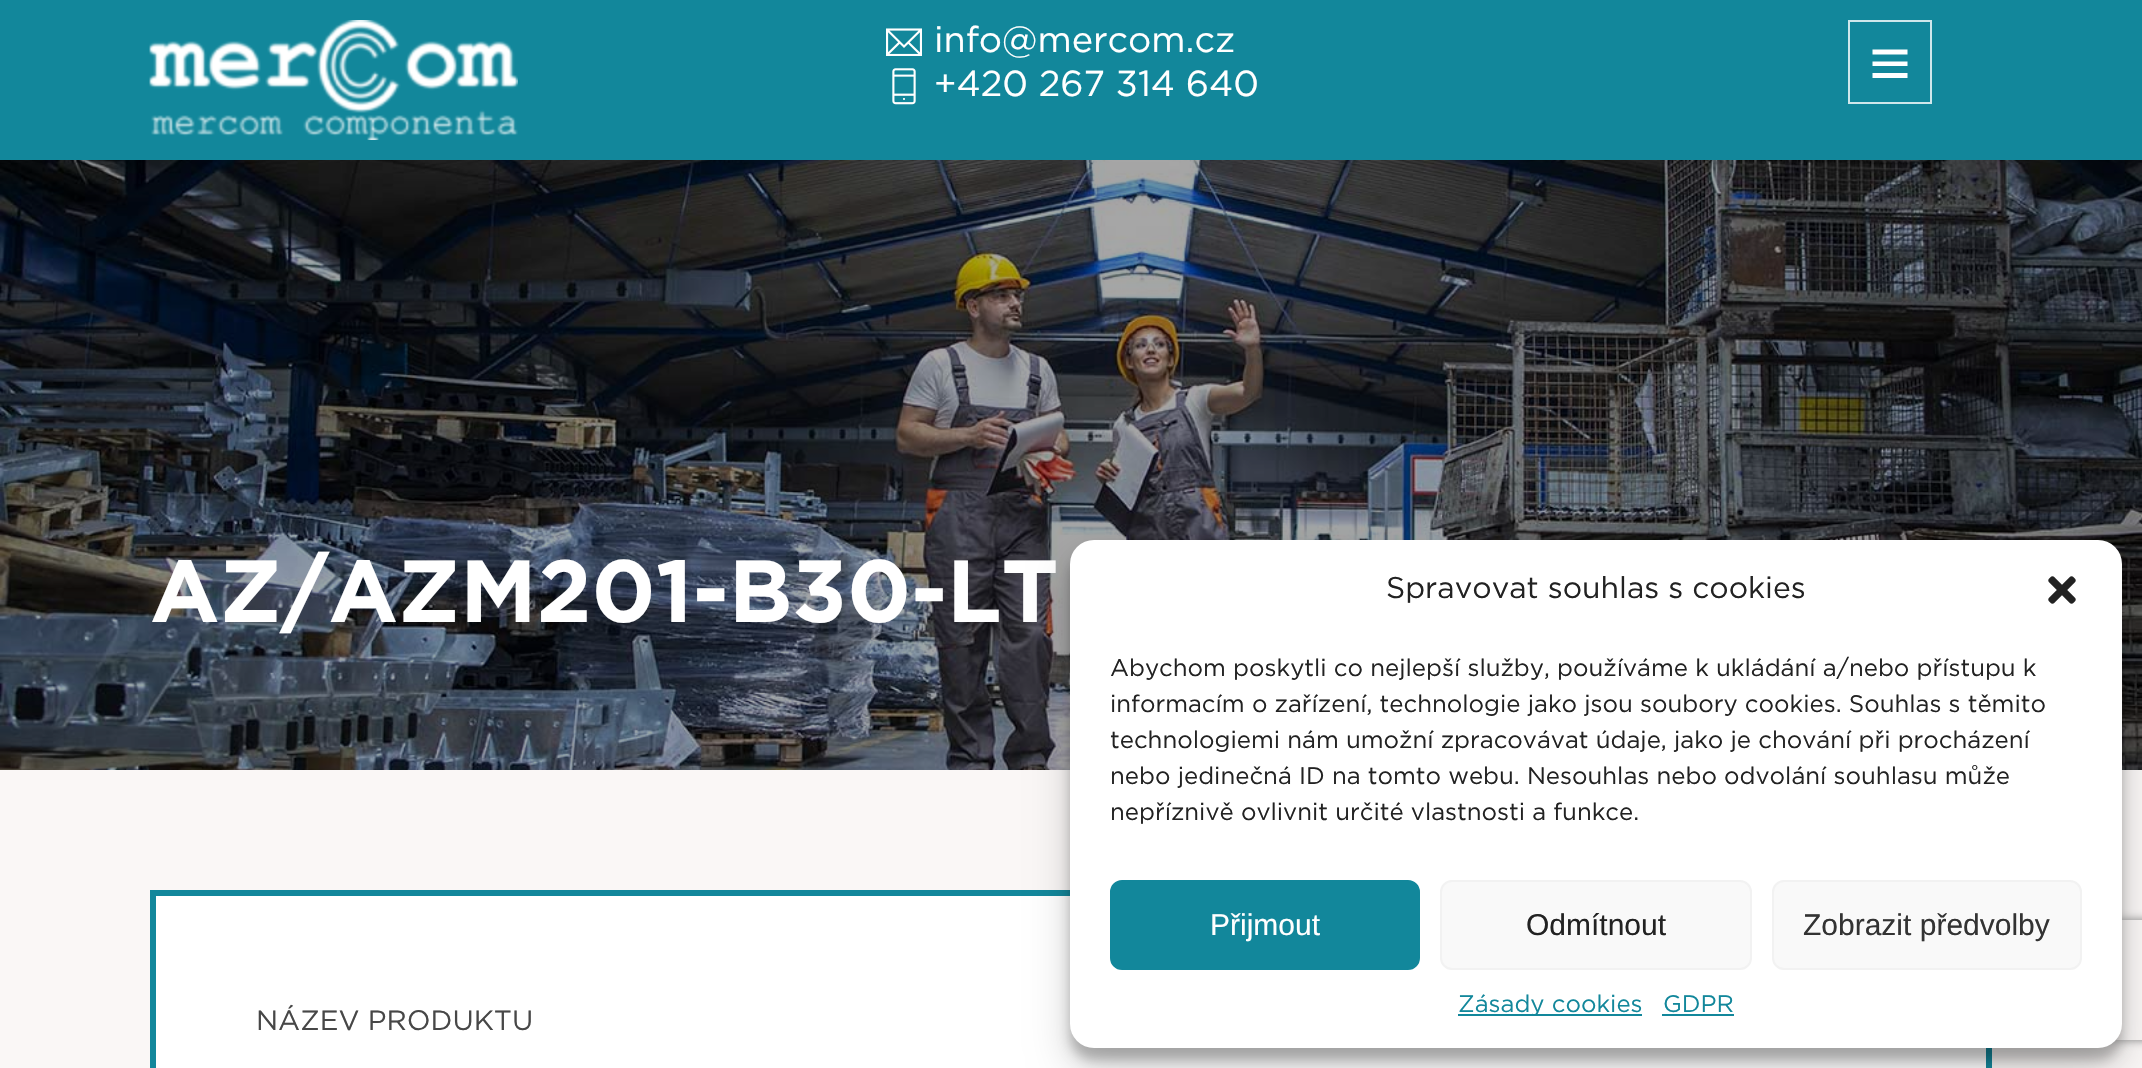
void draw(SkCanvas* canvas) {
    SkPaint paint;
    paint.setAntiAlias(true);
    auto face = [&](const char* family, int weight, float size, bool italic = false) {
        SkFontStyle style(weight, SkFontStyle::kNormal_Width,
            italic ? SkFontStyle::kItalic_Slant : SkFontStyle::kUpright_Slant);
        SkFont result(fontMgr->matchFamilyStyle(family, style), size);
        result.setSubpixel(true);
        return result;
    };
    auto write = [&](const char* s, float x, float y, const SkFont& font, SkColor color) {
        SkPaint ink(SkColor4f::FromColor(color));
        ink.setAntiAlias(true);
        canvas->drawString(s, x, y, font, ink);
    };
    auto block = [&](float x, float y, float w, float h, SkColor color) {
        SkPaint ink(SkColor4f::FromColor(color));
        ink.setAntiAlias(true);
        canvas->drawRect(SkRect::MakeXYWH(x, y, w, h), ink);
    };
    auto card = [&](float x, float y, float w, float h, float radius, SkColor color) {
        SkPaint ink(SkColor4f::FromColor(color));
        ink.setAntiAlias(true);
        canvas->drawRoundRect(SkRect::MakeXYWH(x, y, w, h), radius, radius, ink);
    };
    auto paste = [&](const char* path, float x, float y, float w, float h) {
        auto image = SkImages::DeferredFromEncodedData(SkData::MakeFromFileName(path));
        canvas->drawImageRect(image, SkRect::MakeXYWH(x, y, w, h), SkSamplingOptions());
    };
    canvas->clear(SkColorSetRGB(250, 247, 246));
    block(0, 0, 2142, 160, SkColorSetRGB(18, 135, 155));
    paste("pic1.png", 149, 20, 369, 120);
    paste("pic2.png", 886, 28, 36, 28);
    auto kFont1 = face("Gotham", 400, 36);
    write("info@mercom.cz", 934, 52, kFont1, SK_ColorWHITE);
    paste("pic3.png", 892, 68, 24, 37);
    write("+420 267 314 640", 934, 96, kFont1, SK_ColorWHITE);
    paint.setStyle(SkPaint::kStroke_Style);
    paint.setStrokeWidth(2);
    paint.setColor(SkColorSetRGB(208, 231, 235));
    canvas->drawRect(SkRect::MakeXYWH(1849, 21, 82, 82), paint);
    paint.setStyle(SkPaint::kFill_Style);
    paint.setColor(SK_ColorWHITE);
    canvas->drawPath(SkPathBuilder().moveTo(1907.5f, 49.5f).lineTo(1907.5f, 54.5f).lineTo(1872.5f, 54.5f).lineTo(1872.5f, 49.5f).close().moveTo(1872.5f, 66).lineTo(1907.5f, 66).lineTo(1907.5f, 61.5f).lineTo(1872.5f, 61.5f).close().moveTo(1872.5f, 78).lineTo(1907.5f, 78).lineTo(1907.5f, 73).lineTo(1872.5f, 73).close().detach(), paint);
    paste("pic4.png", 0, 160, 2142, 610);
    auto kFont2 = face("Gotham", 700, 88);
    write("AZ/AZM201-B30-LT", 150, 622, kFont2, SK_ColorWHITE);
    canvas->drawRect(SkRect::MakeXYWH(153, 893, 1836, 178), paint);
    paint.setStyle(SkPaint::kStroke_Style);
    paint.setStrokeWidth(6);
    paint.setColor(SkColorSetRGB(18, 135, 155));
    canvas->drawRect(SkRect::MakeXYWH(153, 893, 1836, 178), paint);
    paint.setStyle(SkPaint::kFill_Style);
    paint.setColor(SkColorSetARGB(59, 0, 0, 0));
    paint.setMaskFilter(SkMaskFilter::MakeBlur(kNormal_SkBlurStyle, 6));
    canvas->drawRoundRect(SkRect::MakeXYWH(1070, 552, 1052, 508), 24, 24, paint);
    paint.setMaskFilter(nullptr);
    paint.setColor(SkColorSetARGB(48, 0, 0, 0));
    paint.setMaskFilter(SkMaskFilter::MakeBlur(kNormal_SkBlurStyle, 20));
    canvas->drawRoundRect(SkRect::MakeXYWH(1070, 560, 1052, 508), 24, 24, paint);
    paint.setMaskFilter(nullptr);
    canvas->save();
    canvas->clipPath(SkPathBuilder(SkPathFillType::kEvenOdd).moveTo(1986, 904).lineTo(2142, 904).lineTo(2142, 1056).lineTo(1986, 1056).close().moveTo(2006, 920).lineTo(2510, 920).cubicTo(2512, 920, 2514, 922, 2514, 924).lineTo(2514, 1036).cubicTo(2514, 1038, 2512, 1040, 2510, 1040).lineTo(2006, 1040).cubicTo(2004, 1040, 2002, 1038, 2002, 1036).lineTo(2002, 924).cubicTo(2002, 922, 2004, 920, 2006, 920).close().detach(), true);
    paint.setColor(SkColorSetRGB(128, 128, 128));
    paint.setMaskFilter(SkMaskFilter::MakeBlur(kNormal_SkBlurStyle, 5));
    canvas->drawRoundRect(SkRect::MakeXYWH(2002, 920, 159, 120), 4, 4, paint);
    paint.setMaskFilter(nullptr);
    canvas->restore();
    card(1070, 540, 1052, 508, 24, SK_ColorWHITE);
    auto kFont3 = face("Gotham", 400, 30);
    write("Spravovat souhlas s cookies", 1386, 598, kFont3, SkColorSetRGB(34, 34, 34));
    paste("pic5.png", 2048, 576, 28, 28);
    auto kFont4 = face("Gotham", 400, 24);
    write("Abychom poskytli co nejlepší služby, používáme k ukládání a/nebo přístupu k", 1110, 676, kFont4, SkColorSetRGB(34, 34, 34));
    write("informacím o zařízení, technologie jako jsou soubory cookies. Souhlas s těmito", 1110, 712, kFont4, SkColorSetRGB(34, 34, 34));
    write("technologiemi nám umožní zpracovávat údaje, jako je chování při procházení", 1110, 748, kFont4, SkColorSetRGB(34, 34, 34));
    write("nebo jedinečná ID na tomto webu. Nesouhlas nebo odvolání souhlasu může", 1110, 784, kFont4, SkColorSetRGB(34, 34, 34));
    write("nepříznivě ovlivnit určité vlastnosti a funkce.", 1110, 820, kFont4, SkColorSetRGB(34, 34, 34));
    paint.setColor(SkColorSetRGB(18, 135, 155));
    canvas->drawRoundRect(SkRect::MakeXYWH(1111, 881, 308, 88), 11, 11, paint);
    paint.setStyle(SkPaint::kStroke_Style);
    paint.setStrokeWidth(2);
    canvas->drawRoundRect(SkRect::MakeXYWH(1111, 881, 308, 88), 11, 11, paint);
    auto kFont5 = face("Liberation Sans", 400, 30);
    write("Přijmout", 1210, 935, kFont5, SK_ColorWHITE);
    paint.setStyle(SkPaint::kFill_Style);
    paint.setColor(SkColorSetRGB(249, 249, 249));
    canvas->drawRoundRect(SkRect::MakeXYWH(1441, 881, 310, 88), 11, 11, paint);
    paint.setStyle(SkPaint::kStroke_Style);
    paint.setColor(SkColorSetRGB(242, 242, 242));
    canvas->drawRoundRect(SkRect::MakeXYWH(1441, 881, 310, 88), 11, 11, paint);
    write("Odmítnout", 1526, 935, kFont5, SkColorSetRGB(34, 34, 34));
    paint.setStyle(SkPaint::kFill_Style);
    paint.setColor(SkColorSetRGB(249, 249, 249));
    canvas->drawRoundRect(SkRect::MakeXYWH(1773, 881, 308, 88), 11, 11, paint);
    paint.setStyle(SkPaint::kStroke_Style);
    paint.setColor(SkColorSetRGB(242, 242, 242));
    canvas->drawRoundRect(SkRect::MakeXYWH(1773, 881, 308, 88), 11, 11, paint);
    write("Zobrazit předvolby", 1803, 935, kFont5, SkColorSetRGB(51, 51, 51));
    block(1458, 1014, 184, 2, SkColorSetRGB(18, 135, 155));
    write("Zásady cookies", 1458, 1012, kFont4, SkColorSetRGB(18, 135, 155));
    write("GDPR", 1663, 1012, kFont4, SkColorSetRGB(18, 135, 155));
    block(1662, 1014, 72, 2, SkColorSetRGB(18, 135, 155));
    auto kFont6 = face("Gotham", 400, 28);
    write("NÁZEV PRODUKTU", 256, 1030, kFont6, SkColorSetRGB(71, 71, 71));
}
